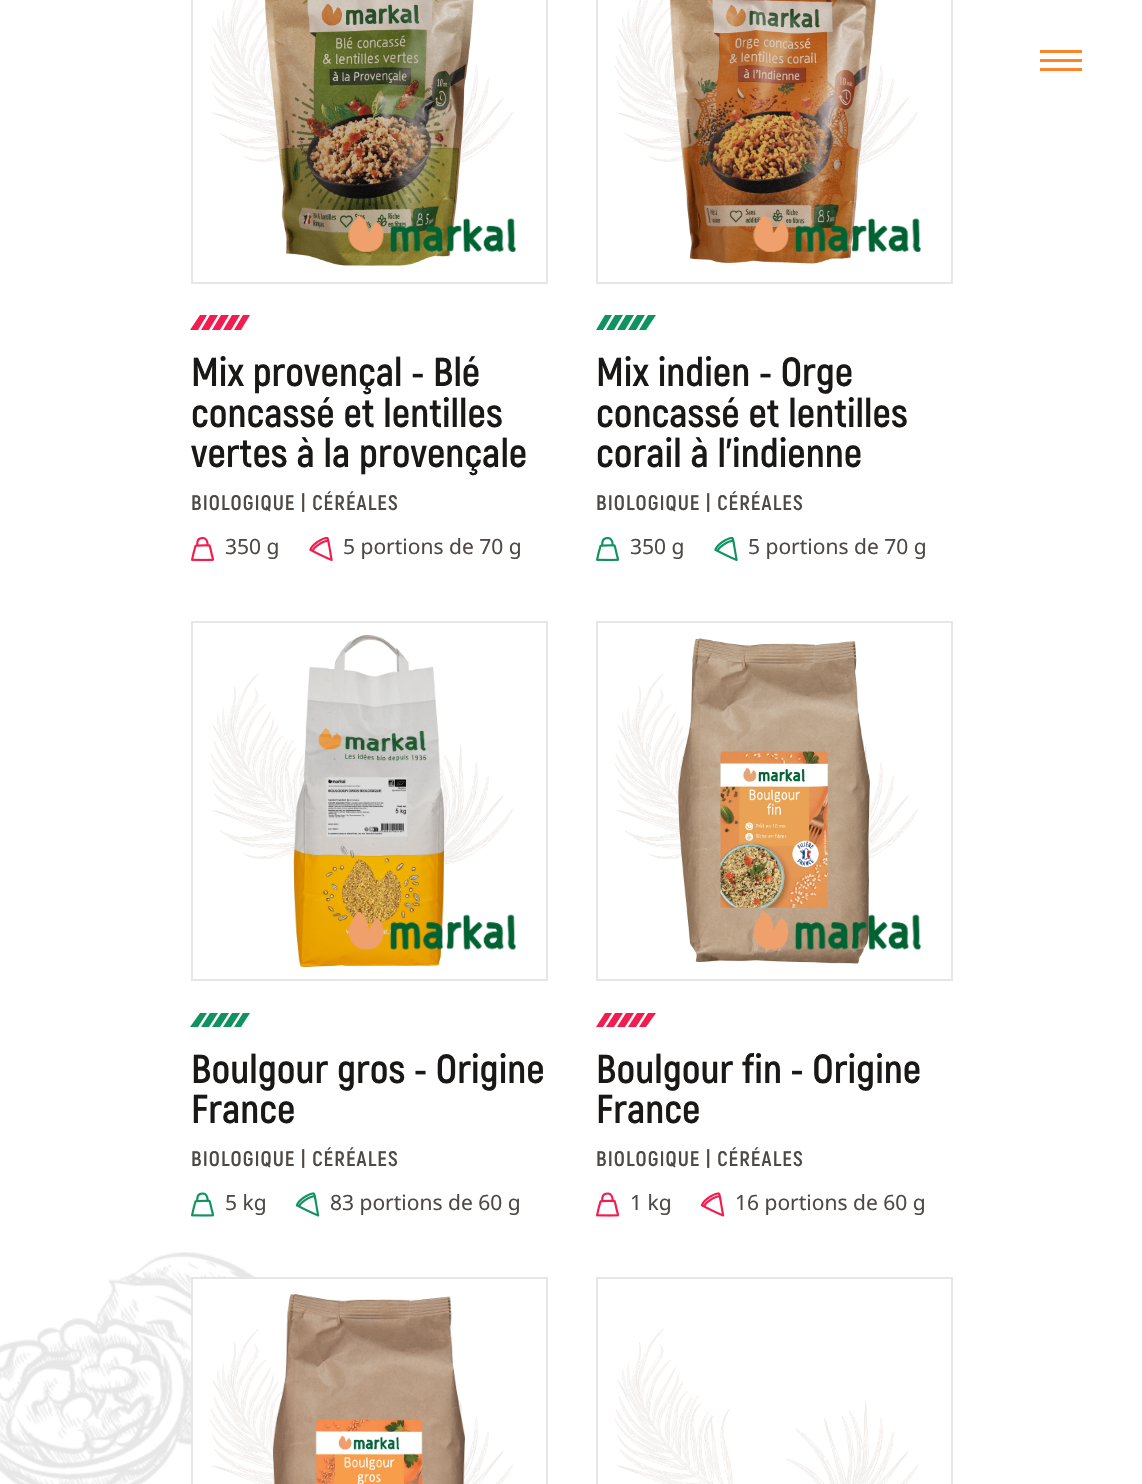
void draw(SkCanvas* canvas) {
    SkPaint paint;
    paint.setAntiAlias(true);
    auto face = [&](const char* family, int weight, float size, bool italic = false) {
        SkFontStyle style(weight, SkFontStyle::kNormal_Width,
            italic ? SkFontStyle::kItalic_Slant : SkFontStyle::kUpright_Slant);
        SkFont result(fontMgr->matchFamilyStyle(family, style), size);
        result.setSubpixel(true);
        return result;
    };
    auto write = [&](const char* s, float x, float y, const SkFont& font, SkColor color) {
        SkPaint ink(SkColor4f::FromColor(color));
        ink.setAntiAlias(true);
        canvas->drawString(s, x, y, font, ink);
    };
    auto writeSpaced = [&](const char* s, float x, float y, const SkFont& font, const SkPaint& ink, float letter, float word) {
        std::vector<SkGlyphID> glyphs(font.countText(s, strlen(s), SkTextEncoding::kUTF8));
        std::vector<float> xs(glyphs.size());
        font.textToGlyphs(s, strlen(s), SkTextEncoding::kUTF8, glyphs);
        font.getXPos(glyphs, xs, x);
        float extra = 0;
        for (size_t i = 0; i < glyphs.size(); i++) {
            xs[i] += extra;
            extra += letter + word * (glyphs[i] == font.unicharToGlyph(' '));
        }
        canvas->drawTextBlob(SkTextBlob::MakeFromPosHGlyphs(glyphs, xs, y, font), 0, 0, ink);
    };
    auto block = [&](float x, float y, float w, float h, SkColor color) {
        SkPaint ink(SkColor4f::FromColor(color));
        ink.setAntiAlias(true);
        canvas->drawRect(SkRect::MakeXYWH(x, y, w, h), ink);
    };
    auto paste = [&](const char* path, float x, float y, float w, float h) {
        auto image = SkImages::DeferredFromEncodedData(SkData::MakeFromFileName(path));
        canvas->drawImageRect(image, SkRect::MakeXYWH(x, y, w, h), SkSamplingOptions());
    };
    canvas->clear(SK_ColorWHITE);
    block(1040, 50, 42, 3, SkColorSetRGB(255, 131, 41));
    block(1040, 59, 42, 3, SkColorSetRGB(255, 131, 41));
    block(1040, 68, 42, 3, SkColorSetRGB(255, 131, 41));
    paste("pic1.png", 210, 0, 303, 164);
    paint.setStyle(SkPaint::kStroke_Style);
    paint.setStrokeWidth(2);
    paint.setColor(SkColorSetRGB(230, 230, 230));
    canvas->drawRect(SkRect::MakeXYWH(192, -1, 355, 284), paint);
    paste("pic2.png", 264, 0, 210, 266);
    paste("pic3.png", 348, 216, 168, 36);
    paint.setStyle(SkPaint::kFill_Style);
    paint.setColor(SkColorSetRGB(242, 28, 79));
    canvas->drawPath(SkPathBuilder().moveTo(241, 330).lineTo(234, 330).lineTo(243, 315).lineTo(250, 315).close().moveTo(231, 330).lineTo(223, 330).lineTo(232, 315).lineTo(240, 315).close().moveTo(220, 330).lineTo(212, 330).lineTo(221, 315).lineTo(229, 315).close().moveTo(209, 330).lineTo(201, 330).lineTo(210, 315).lineTo(218, 315).close().moveTo(198, 330).lineTo(190, 330).lineTo(200, 315).lineTo(207, 315).close().detach(), paint);
    auto kFont1 = face("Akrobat", 700, 40.5f);
    write("Mix provençal - Blé", 191, 386, kFont1, SkColorSetRGB(26, 24, 23));
    write("concassé et lentilles", 191, 427, kFont1, SkColorSetRGB(26, 24, 23));
    write("vertes à la provençale", 191, 467, kFont1, SkColorSetRGB(26, 24, 23));
    auto kFont2 = face("Akrobat", 700, 21);
    paint.setColor(SkColorSetRGB(77, 73, 70));
    writeSpaced("BIOLOGIQUE | CÉRÉALES", 191, 510, kFont2, paint, 1.05f, 0);
    paste("pic4.png", 191, 537, 23, 24);
    auto kFont3 = face("Noto Sans", 400, 21);
    write("350 g", 225, 554, kFont3, SkColorSetRGB(77, 73, 70));
    paste("pic5.png", 309, 536, 24, 26);
    write("5 portions de 70 g", 343, 554, kFont3, SkColorSetRGB(77, 73, 70));
    paste("pic6.png", 615, 0, 303, 165);
    paint.setStyle(SkPaint::kStroke_Style);
    paint.setColor(SkColorSetRGB(230, 230, 230));
    canvas->drawRect(SkRect::MakeXYWH(597, -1, 355, 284), paint);
    paste("pic7.png", 669, 0, 208, 264);
    paste("pic8.png", 753, 216, 168, 36);
    paint.setStyle(SkPaint::kFill_Style);
    paint.setColor(SkColorSetRGB(17, 147, 97));
    canvas->drawPath(SkPathBuilder().moveTo(646, 330).lineTo(639, 330).lineTo(648, 315).lineTo(656, 315).close().moveTo(636, 330).lineTo(628, 330).lineTo(637, 315).lineTo(645, 315).close().moveTo(625, 330).lineTo(617, 330).lineTo(626, 315).lineTo(634, 315).close().moveTo(614, 330).lineTo(606, 330).lineTo(615, 315).lineTo(623, 315).close().moveTo(603, 330).lineTo(596, 330).lineTo(605, 315).lineTo(612, 315).close().detach(), paint);
    write("Mix indien - Orge", 596, 386, kFont1, SkColorSetRGB(26, 24, 23));
    write("concassé et lentilles", 596, 427, kFont1, SkColorSetRGB(26, 24, 23));
    write("corail à l'indienne", 596, 467, kFont1, SkColorSetRGB(26, 24, 23));
    paint.setColor(SkColorSetRGB(77, 73, 70));
    writeSpaced("BIOLOGIQUE | CÉRÉALES", 596, 510, kFont2, paint, 1.05f, 0);
    paste("pic9.png", 596, 537, 23, 24);
    write("350 g", 630, 554, kFont3, SkColorSetRGB(77, 73, 70));
    paste("pic10.png", 714, 536, 24, 26);
    write("5 portions de 70 g", 748, 554, kFont3, SkColorSetRGB(77, 73, 70));
    paste("pic11.png", 210, 673, 303, 192);
    paint.setStyle(SkPaint::kStroke_Style);
    paint.setColor(SkColorSetRGB(230, 230, 230));
    canvas->drawRect(SkRect::MakeXYWH(192, 622, 355, 358), paint);
    paste("pic12.png", 293, 635, 152, 332);
    paste("pic13.png", 348, 912, 168, 38);
    paint.setStyle(SkPaint::kFill_Style);
    paint.setColor(SkColorSetRGB(17, 147, 97));
    canvas->drawPath(SkPathBuilder().moveTo(241, 1027).lineTo(234, 1027).lineTo(243, 1013).lineTo(250, 1013).close().moveTo(231, 1027).lineTo(223, 1027).lineTo(232, 1013).lineTo(240, 1013).close().moveTo(220, 1027).lineTo(212, 1027).lineTo(221, 1013).lineTo(229, 1013).close().moveTo(209, 1027).lineTo(201, 1027).lineTo(210, 1013).lineTo(218, 1013).close().moveTo(198, 1027).lineTo(190, 1027).lineTo(200, 1013).lineTo(207, 1013).close().detach(), paint);
    write("Boulgour gros - Origine", 191, 1083, kFont1, SkColorSetRGB(26, 24, 23));
    write("France", 191, 1123, kFont1, SkColorSetRGB(26, 24, 23));
    paint.setColor(SkColorSetRGB(77, 73, 70));
    writeSpaced("BIOLOGIQUE | CÉRÉALES", 191, 1166, kFont2, paint, 1.05f, 0);
    paste("pic14.png", 191, 1192, 23, 25);
    write("5 kg", 225, 1210, kFont3, SkColorSetRGB(77, 73, 70));
    paste("pic15.png", 295, 1192, 25, 25);
    write("83 portions de 60 g", 330, 1210, kFont3, SkColorSetRGB(77, 73, 70));
    paste("pic16.png", 615, 673, 303, 186);
    paint.setStyle(SkPaint::kStroke_Style);
    paint.setColor(SkColorSetRGB(230, 230, 230));
    canvas->drawRect(SkRect::MakeXYWH(597, 622, 355, 358), paint);
    paste("pic17.png", 678, 638, 192, 326);
    paste("pic18.png", 753, 912, 168, 38);
    paint.setStyle(SkPaint::kFill_Style);
    paint.setColor(SkColorSetRGB(242, 28, 79));
    canvas->drawPath(SkPathBuilder().moveTo(646, 1027).lineTo(639, 1027).lineTo(648, 1013).lineTo(656, 1013).close().moveTo(636, 1027).lineTo(628, 1027).lineTo(637, 1013).lineTo(645, 1013).close().moveTo(625, 1027).lineTo(617, 1027).lineTo(626, 1013).lineTo(634, 1013).close().moveTo(614, 1027).lineTo(606, 1027).lineTo(615, 1013).lineTo(623, 1013).close().moveTo(603, 1027).lineTo(596, 1027).lineTo(605, 1013).lineTo(612, 1013).close().detach(), paint);
    write("Boulgour fin - Origine", 596, 1083, kFont1, SkColorSetRGB(26, 24, 23));
    write("France", 596, 1123, kFont1, SkColorSetRGB(26, 24, 23));
    paint.setColor(SkColorSetRGB(77, 73, 70));
    writeSpaced("BIOLOGIQUE | CÉRÉALES", 596, 1166, kFont2, paint, 1.05f, 0);
    paste("pic19.png", 596, 1192, 23, 25);
    write("1 kg", 630, 1210, kFont3, SkColorSetRGB(77, 73, 70));
    paste("pic20.png", 700, 1192, 25, 25);
    write("16 portions de 60 g", 735, 1210, kFont3, SkColorSetRGB(77, 73, 70));
    paste("pic23.png", 0, 1252, 255, 232);
    block(193, 1279, 62, 166, SK_ColorWHITE);
    paste("pic21.png", 210, 1329, 303, 155);
    paint.setStyle(SkPaint::kStroke_Style);
    paint.setColor(SkColorSetRGB(230, 230, 230));
    canvas->drawRect(SkRect::MakeXYWH(192, 1278, 355, 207), paint);
    paste("pic22.png", 273, 1293, 192, 191);
    paste("pic21.png", 615, 1329, 303, 155);
    canvas->drawRect(SkRect::MakeXYWH(597, 1278, 355, 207), paint);
}
